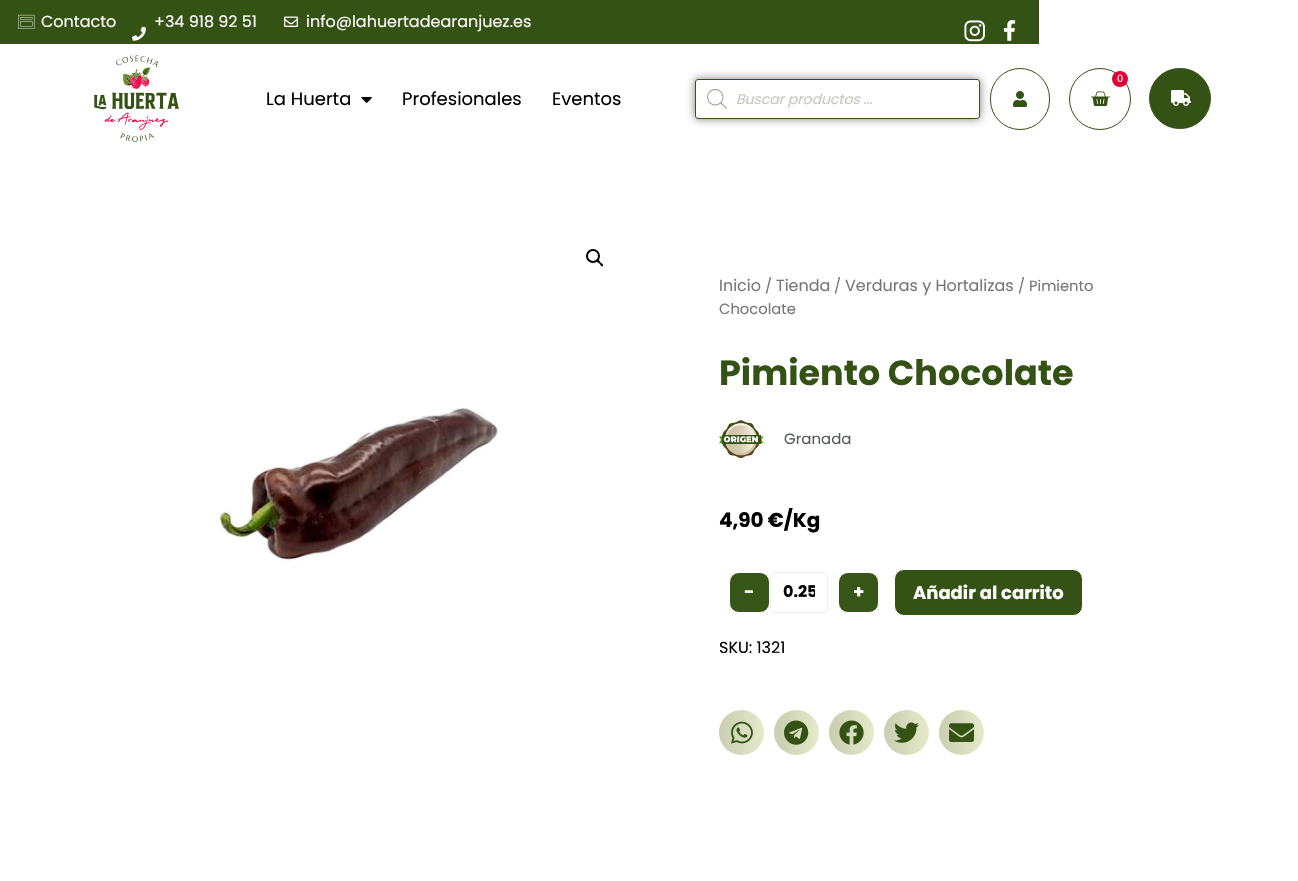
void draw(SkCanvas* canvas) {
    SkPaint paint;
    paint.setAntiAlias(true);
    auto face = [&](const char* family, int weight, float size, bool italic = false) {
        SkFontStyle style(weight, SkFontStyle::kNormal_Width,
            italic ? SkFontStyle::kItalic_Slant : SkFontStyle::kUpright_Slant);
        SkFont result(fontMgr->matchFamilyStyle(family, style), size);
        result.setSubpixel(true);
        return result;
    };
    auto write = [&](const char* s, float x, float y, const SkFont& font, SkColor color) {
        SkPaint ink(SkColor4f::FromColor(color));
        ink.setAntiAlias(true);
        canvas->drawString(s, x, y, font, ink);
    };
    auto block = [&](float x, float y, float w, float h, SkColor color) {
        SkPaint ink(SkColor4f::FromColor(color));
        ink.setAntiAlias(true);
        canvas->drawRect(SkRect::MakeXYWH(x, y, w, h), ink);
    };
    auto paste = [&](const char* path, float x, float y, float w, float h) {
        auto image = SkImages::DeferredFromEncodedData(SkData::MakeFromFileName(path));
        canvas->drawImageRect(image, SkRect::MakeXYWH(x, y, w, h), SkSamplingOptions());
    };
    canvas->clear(SK_ColorWHITE);
    block(0, 0, 1039, 44, SkColorSetRGB(52, 82, 20));
    paste("pic1.png", 18, 14, 17, 15);
    auto kFont1 = face("Poppins", 400, 16);
    write("Contacto", 41, 27, kFont1, SK_ColorWHITE);
    write("+34 918 92 51", 154, 27, kFont1, SK_ColorWHITE);
    paste("pic2.png", 132, 26, 14, 15);
    paste("pic3.png", 284, 16, 14, 11);
    write("info@lahuertadearanjuez.es", 306, 27, kFont1, SK_ColorWHITE);
    paste("pic4.png", 964, 20, 21, 22);
    paste("pic5.png", 1003, 20, 13, 21);
    paste("pic6.png", 94, 55, 86, 87);
    paint.setColor(SkColorSetARGB(128, 0, 0, 0));
    paint.setMaskFilter(SkMaskFilter::MakeBlur(kNormal_SkBlurStyle, 5));
    canvas->drawRoundRect(SkRect::MakeXYWH(695, 79, 285, 40), 3, 3, paint);
    paint.setMaskFilter(nullptr);
    paint.setStyle(SkPaint::kStroke_Style);
    paint.setStrokeWidth(1);
    paint.setColor(SkColorSetRGB(52, 82, 20));
    canvas->drawRoundRect(SkRect::MakeXYWH(990.5f, 68.5f, 59, 61), 29.5f, 29.5f, paint);
    paste("pic7.png", 1013, 91, 14, 16);
    canvas->drawCircle(1100, 99, 30.5f, paint);
    paint.setStyle(SkPaint::kFill_Style);
    paint.setColor(SkColorSetRGB(227, 0, 52));
    canvas->drawCircle(1120, 79, 8, paint);
    auto kFont2 = face("Poppins", 400, 10);
    write("0", 1117, 82, kFont2, SK_ColorWHITE);
    paste("pic8.png", 1090, 91, 20, 16);
    paint.setColor(SkColorSetRGB(52, 82, 20));
    canvas->drawRoundRect(SkRect::MakeXYWH(1149.5f, 68.5f, 61, 60), 30, 30, paint);
    paint.setStyle(SkPaint::kStroke_Style);
    canvas->drawRoundRect(SkRect::MakeXYWH(1149.5f, 68.5f, 61, 60), 30, 30, paint);
    paste("pic9.png", 1171, 90, 20, 16);
    auto kFont3 = face("Poppins", 400, 18);
    write("La Huerta", 266, 105, kFont3, SK_ColorBLACK);
    paste("pic10.png", 361, 97, 11, 6);
    write("Profesionales", 402, 105, kFont3, SK_ColorBLACK);
    write("Eventos", 552, 105, kFont3, SK_ColorBLACK);
    paint.setStyle(SkPaint::kFill_Style);
    paint.setColor(SK_ColorWHITE);
    canvas->drawRoundRect(SkRect::MakeXYWH(695.5f, 79.5f, 284, 39), 2.5f, 2.5f, paint);
    paint.setStyle(SkPaint::kStroke_Style);
    paint.setColor(SkColorSetRGB(52, 82, 20));
    canvas->drawRoundRect(SkRect::MakeXYWH(695.5f, 79.5f, 284, 39), 2.5f, 2.5f, paint);
    paste("pic11.png", 707, 89, 20, 20);
    auto kFont4 = face("Poppins", 400, 14, true);
    write("Buscar productos ...", 736, 104, kFont4, SkColorSetRGB(194, 203, 185));
    paint.setStrokeWidth(2);
    paint.setColor(SK_ColorBLACK);
    canvas->drawCircle(593, 256, 6, paint);
    paint.setStyle(SkPaint::kFill_Style);
    canvas->drawPath(SkPathBuilder().moveTo(597, 260).cubicTo(598.5f, 259, 600, 261.5f, 600.5f, 262.5f).cubicTo(601.5f, 263, 604, 264.5f, 603, 266).cubicTo(601.5f, 267, 600, 264.5f, 599.5f, 263.5f).cubicTo(598.5f, 263, 596, 261.5f, 597, 260).close().detach(), paint);
    paste("pic12.png", 219, 407, 283, 155);
    write("Inicio", 719, 291, kFont1, SkColorSetRGB(118, 118, 118));
    auto kFont5 = face("Poppins", 400, 14.75f);
    write("/", 765, 291, kFont5, SkColorSetRGB(118, 118, 118));
    write("Tienda", 776, 291, kFont1, SkColorSetRGB(118, 118, 118));
    write("/", 834, 291, kFont5, SkColorSetRGB(118, 118, 118));
    write("Verduras y Hortalizas", 845, 291, kFont1, SkColorSetRGB(118, 118, 118));
    write("/ Pimiento", 1018, 291, kFont5, SkColorSetRGB(118, 118, 118));
    write("Chocolate", 719, 314, kFont5, SkColorSetRGB(118, 118, 118));
    auto kFont6 = face("Poppins", 700, 35);
    write("Pimiento Chocolate", 719, 385, kFont6, SkColorSetRGB(52, 82, 20));
    paste("pic13.png", 719, 420, 45, 38);
    auto kFont7 = face("Poppins", 400, 15);
    write("Granada", 784, 444, kFont7, SkColorSetRGB(84, 89, 95));
    auto kFont8 = face("Poppins", 700, 20);
    write("4,90 €/Kg", 719, 527, kFont8, SK_ColorBLACK);
    paint.setColor(SkColorSetRGB(55, 85, 23));
    canvas->drawRoundRect(SkRect::MakeXYWH(729.5f, 572.5f, 40, 40), 9.5f, 9.5f, paint);
    paint.setStyle(SkPaint::kStroke_Style);
    paint.setStrokeWidth(1);
    paint.setColor(SK_ColorWHITE);
    canvas->drawRoundRect(SkRect::MakeXYWH(729.5f, 572.5f, 40, 40), 9.5f, 9.5f, paint);
    auto kFont9 = face("Poppins", 700, 18);
    write("-", 744, 598, kFont9, SK_ColorWHITE);
    paint.setColor(SkColorSetRGB(239, 239, 239));
    canvas->drawRoundRect(SkRect::MakeXYWH(770.5f, 572.5f, 57, 40), 2.5f, 2.5f, paint);
    canvas->save();
    canvas->clipRect(SkRect::MakeXYWH(783, 579, 32, 25));
    auto kFont10 = face("Poppins", 700, 16);
    write("0.25", 783, 597, kFont10, SK_ColorBLACK);
    canvas->restore();
    paint.setStyle(SkPaint::kFill_Style);
    paint.setColor(SkColorSetRGB(55, 85, 23));
    canvas->drawRoundRect(SkRect::MakeXYWH(838.5f, 572.5f, 40, 40), 9.5f, 9.5f, paint);
    paint.setStyle(SkPaint::kStroke_Style);
    paint.setColor(SK_ColorWHITE);
    canvas->drawRoundRect(SkRect::MakeXYWH(838.5f, 572.5f, 40, 40), 9.5f, 9.5f, paint);
    write("+", 853, 598, kFont9, SK_ColorWHITE);
    paint.setStyle(SkPaint::kFill_Style);
    paint.setColor(SkColorSetRGB(52, 82, 20));
    canvas->drawRoundRect(SkRect::MakeXYWH(894.5f, 569.5f, 188, 46), 9.5f, 9.5f, paint);
    paint.setStyle(SkPaint::kStroke_Style);
    paint.setColor(SK_ColorWHITE);
    canvas->drawRoundRect(SkRect::MakeXYWH(894.5f, 569.5f, 188, 46), 9.5f, 9.5f, paint);
    write("Añadir al carrito", 913, 599, kFont9, SK_ColorWHITE);
    write("SKU: 1321", 719, 653, kFont1, SK_ColorBLACK);
    paint.setStyle(SkPaint::kFill_Style);
    paint.setColor(SkColorSetRGB(229, 234, 202));
    canvas->drawCircle(741.5f, 732.5f, 22.5f, paint);
    {
        const SkColor colors[] = {SkColorSetARGB(31, 0, 0, 0), SkColorSetARGB(0, 0, 0, 0)};
        const float stops[] = {0, 1};
        const SkPoint ends[] = {{719, 733}, {764, 733}};
        paint.setShader(SkGradientShader::MakeLinear(ends, colors, stops, 2, SkTileMode::kClamp));
        paint.setAlpha(255);
    }
    canvas->drawCircle(741.5f, 732.5f, 22.5f, paint);
    paste("pic14.png", 731, 721, 22, 23);
    paint.setShader(nullptr);
    paint.setColor(SkColorSetRGB(229, 234, 202));
    canvas->drawCircle(796.5f, 732.5f, 22.5f, paint);
    {
        const SkColor colors[] = {SkColorSetARGB(31, 0, 0, 0), SkColorSetARGB(0, 0, 0, 0)};
        const float stops[] = {0, 1};
        const SkPoint ends[] = {{774, 733}, {819, 733}};
        paint.setShader(SkGradientShader::MakeLinear(ends, colors, stops, 2, SkTileMode::kClamp));
        paint.setAlpha(255);
    }
    canvas->drawCircle(796.5f, 732.5f, 22.5f, paint);
    paste("pic15.png", 784, 720, 25, 25);
    paint.setShader(nullptr);
    paint.setColor(SkColorSetRGB(229, 234, 202));
    canvas->drawCircle(851.5f, 732.5f, 22.5f, paint);
    {
        const SkColor colors[] = {SkColorSetARGB(31, 0, 0, 0), SkColorSetARGB(0, 0, 0, 0)};
        const float stops[] = {0, 1};
        const SkPoint ends[] = {{829, 733}, {874, 733}};
        paint.setShader(SkGradientShader::MakeLinear(ends, colors, stops, 2, SkTileMode::kClamp));
        paint.setAlpha(255);
    }
    canvas->drawCircle(851.5f, 732.5f, 22.5f, paint);
    paste("pic16.png", 839, 720, 25, 25);
    paint.setShader(nullptr);
    paint.setColor(SkColorSetRGB(229, 234, 202));
    canvas->drawCircle(906.5f, 732.5f, 22.5f, paint);
    {
        const SkColor colors[] = {SkColorSetARGB(31, 0, 0, 0), SkColorSetARGB(0, 0, 0, 0)};
        const float stops[] = {0, 1};
        const SkPoint ends[] = {{884, 733}, {929, 733}};
        paint.setShader(SkGradientShader::MakeLinear(ends, colors, stops, 2, SkTileMode::kClamp));
        paint.setAlpha(255);
    }
    canvas->drawCircle(906.5f, 732.5f, 22.5f, paint);
    paste("pic17.png", 894, 722, 25, 21);
    paint.setShader(nullptr);
    paint.setColor(SkColorSetRGB(229, 234, 202));
    canvas->drawCircle(961.5f, 732.5f, 22.5f, paint);
    {
        const SkColor colors[] = {SkColorSetARGB(31, 0, 0, 0), SkColorSetARGB(0, 0, 0, 0)};
        const float stops[] = {0, 1};
        const SkPoint ends[] = {{939, 733}, {984, 733}};
        paint.setShader(SkGradientShader::MakeLinear(ends, colors, stops, 2, SkTileMode::kClamp));
        paint.setAlpha(255);
    }
    canvas->drawCircle(961.5f, 732.5f, 22.5f, paint);
    paste("pic18.png", 949, 723, 25, 19);
}
